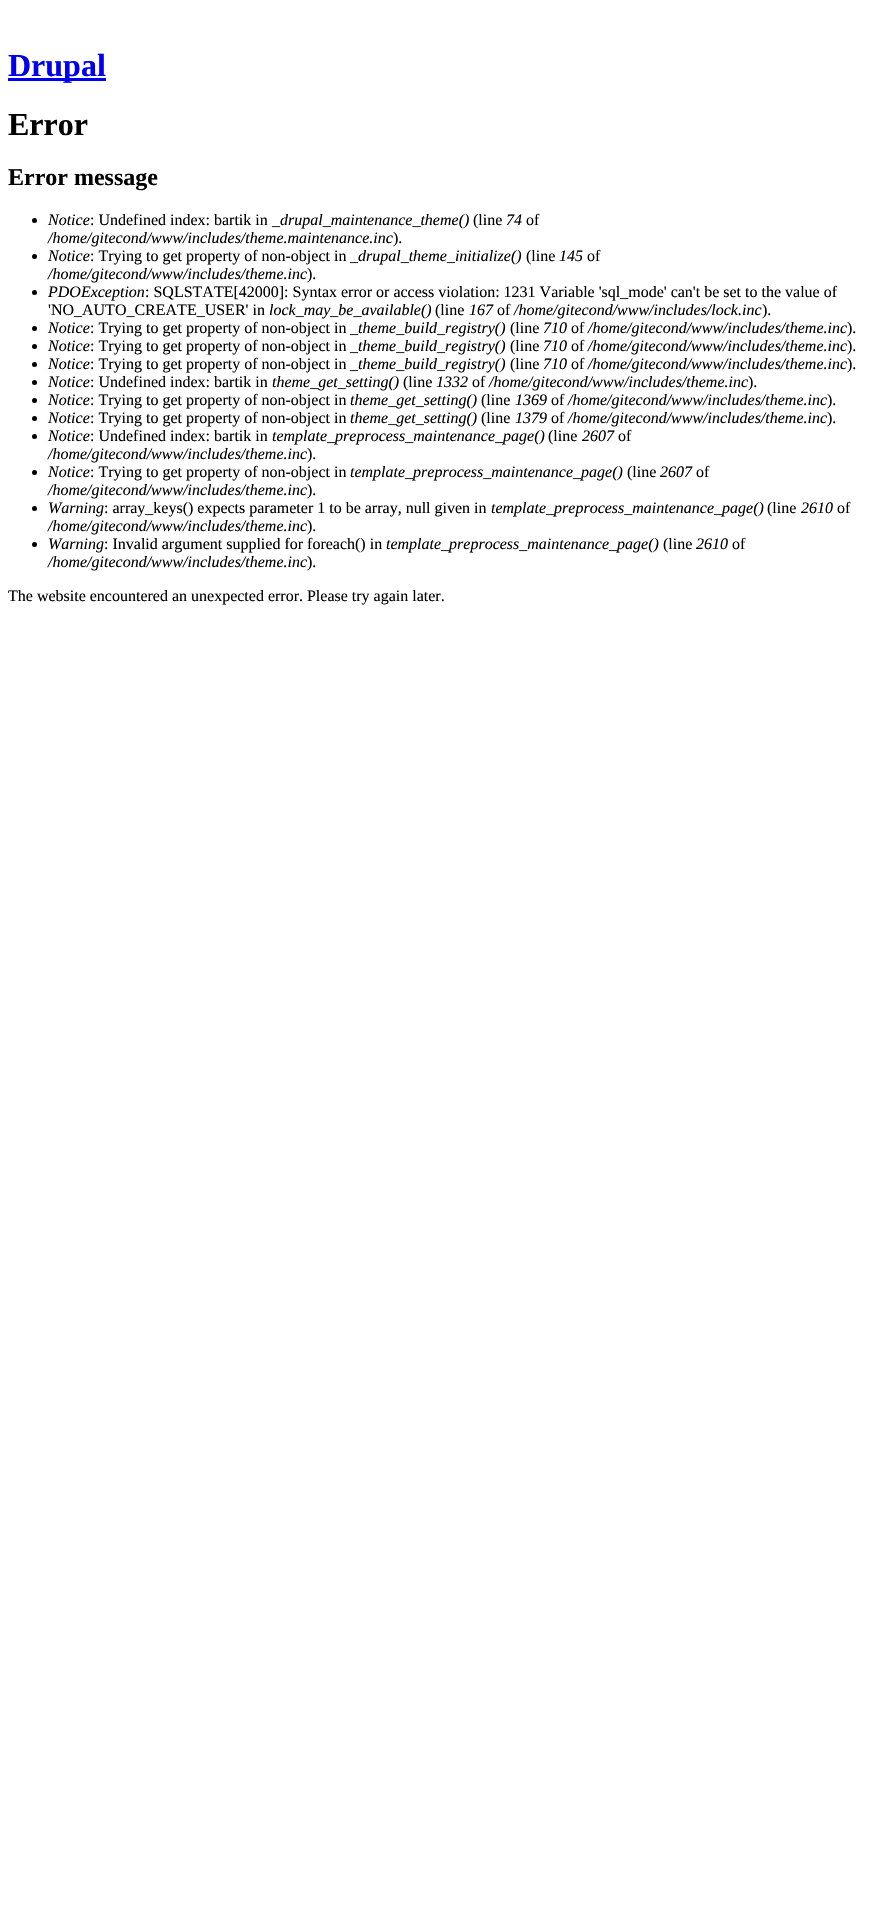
void draw(SkCanvas* canvas) {
    SkPaint paint;
    paint.setAntiAlias(true);
    auto face = [&](const char* family, int weight, float size, bool italic = false) {
        SkFontStyle style(weight, SkFontStyle::kNormal_Width,
            italic ? SkFontStyle::kItalic_Slant : SkFontStyle::kUpright_Slant);
        SkFont result(fontMgr->matchFamilyStyle(family, style), size);
        result.setSubpixel(true);
        return result;
    };
    auto write = [&](const char* s, float x, float y, const SkFont& font, SkColor color) {
        SkPaint ink(SkColor4f::FromColor(color));
        ink.setAntiAlias(true);
        canvas->drawString(s, x, y, font, ink);
    };
    auto block = [&](float x, float y, float w, float h, SkColor color) {
        SkPaint ink(SkColor4f::FromColor(color));
        ink.setAntiAlias(true);
        canvas->drawRect(SkRect::MakeXYWH(x, y, w, h), ink);
    };
    canvas->clear(SK_ColorWHITE);
    block(8, 78, 98, 3, SkColorSetRGB(0, 0, 238));
    auto kFont1 = face("Liberation Serif", 700, 32);
    write("Drupal", 8, 76, kFont1, SkColorSetRGB(0, 0, 238));
    write("Error", 8, 135, kFont1, SK_ColorBLACK);
    auto kFont2 = face("Liberation Serif", 700, 24);
    write("Error message", 8, 185, kFont2, SK_ColorBLACK);
    paint.setColor(SK_ColorBLACK);
    canvas->drawCircle(34.5f, 220.5f, 2.5f, paint);
    auto kFont3 = face("Liberation Serif", 400, 16, true);
    write("Notice", 48, 225, kFont3, SK_ColorBLACK);
    auto kFont4 = face("Liberation Serif", 400, 16);
    write(": Undefined index: bartik in", 90, 225, kFont4, SK_ColorBLACK);
    write("_drupal_maintenance_theme()", 272, 225, kFont3, SK_ColorBLACK);
    write("(line", 473, 225, kFont4, SK_ColorBLACK);
    write("74", 506, 225, kFont3, SK_ColorBLACK);
    write("of", 526, 225, kFont4, SK_ColorBLACK);
    write("/home/gitecond/www/includes/theme.maintenance.inc", 48, 243, kFont3, SK_ColorBLACK);
    write(").", 393, 243, kFont4, SK_ColorBLACK);
    canvas->drawCircle(34.5f, 256.5f, 2.5f, paint);
    write("Notice", 48, 261, kFont3, SK_ColorBLACK);
    write(": Trying to get property of non-object in", 90, 261, kFont4, SK_ColorBLACK);
    write("_drupal_theme_initialize()", 350, 261, kFont3, SK_ColorBLACK);
    write("(line", 526, 261, kFont4, SK_ColorBLACK);
    write("145", 559, 261, kFont3, SK_ColorBLACK);
    write("of", 587, 261, kFont4, SK_ColorBLACK);
    write("/home/gitecond/www/includes/theme.inc", 48, 279, kFont3, SK_ColorBLACK);
    write(").", 307, 279, kFont4, SK_ColorBLACK);
    canvas->drawCircle(34.5f, 292.5f, 2.5f, paint);
    write("PDOException", 48, 297, kFont3, SK_ColorBLACK);
    write(": SQLSTATE[42000]: Syntax error or access violation: 1231 Variable 'sql_mode' can't be set to the value of", 145, 297, kFont4, SK_ColorBLACK);
    write("'NO_AUTO_CREATE_USER' in", 48, 315, kFont4, SK_ColorBLACK);
    write("lock_may_be_available()", 269, 315, kFont3, SK_ColorBLACK);
    write("(line", 435, 315, kFont4, SK_ColorBLACK);
    write("167", 469, 315, kFont3, SK_ColorBLACK);
    write("of", 497, 315, kFont4, SK_ColorBLACK);
    write("/home/gitecond/www/includes/lock.inc", 514, 315, kFont3, SK_ColorBLACK);
    write(").", 762, 315, kFont4, SK_ColorBLACK);
    canvas->drawCircle(34.5f, 328.5f, 2.5f, paint);
    write("Notice", 48, 333, kFont3, SK_ColorBLACK);
    write(": Trying to get property of non-object in", 90, 333, kFont4, SK_ColorBLACK);
    write("_theme_build_registry()", 350, 333, kFont3, SK_ColorBLACK);
    write("(line", 510, 333, kFont4, SK_ColorBLACK);
    write("710", 543, 333, kFont3, SK_ColorBLACK);
    write("of", 571, 333, kFont4, SK_ColorBLACK);
    write("/home/gitecond/www/includes/theme.inc", 588, 333, kFont3, SK_ColorBLACK);
    write(").", 847, 333, kFont4, SK_ColorBLACK);
    canvas->drawCircle(34.5f, 346.5f, 2.5f, paint);
    write("Notice", 48, 351, kFont3, SK_ColorBLACK);
    write(": Trying to get property of non-object in", 90, 351, kFont4, SK_ColorBLACK);
    write("_theme_build_registry()", 350, 351, kFont3, SK_ColorBLACK);
    write("(line", 510, 351, kFont4, SK_ColorBLACK);
    write("710", 543, 351, kFont3, SK_ColorBLACK);
    write("of", 571, 351, kFont4, SK_ColorBLACK);
    write("/home/gitecond/www/includes/theme.inc", 588, 351, kFont3, SK_ColorBLACK);
    write(").", 847, 351, kFont4, SK_ColorBLACK);
    canvas->drawCircle(34.5f, 364.5f, 2.5f, paint);
    write("Notice", 48, 369, kFont3, SK_ColorBLACK);
    write(": Trying to get property of non-object in", 90, 369, kFont4, SK_ColorBLACK);
    write("_theme_build_registry()", 350, 369, kFont3, SK_ColorBLACK);
    write("(line", 510, 369, kFont4, SK_ColorBLACK);
    write("710", 543, 369, kFont3, SK_ColorBLACK);
    write("of", 571, 369, kFont4, SK_ColorBLACK);
    write("/home/gitecond/www/includes/theme.inc", 588, 369, kFont3, SK_ColorBLACK);
    write(").", 847, 369, kFont4, SK_ColorBLACK);
    canvas->drawCircle(34.5f, 382.5f, 2.5f, paint);
    write("Notice", 48, 387, kFont3, SK_ColorBLACK);
    write(": Undefined index: bartik in", 90, 387, kFont4, SK_ColorBLACK);
    write("theme_get_setting()", 272, 387, kFont3, SK_ColorBLACK);
    write("(line", 403, 387, kFont4, SK_ColorBLACK);
    write("1332", 436, 387, kFont3, SK_ColorBLACK);
    write("of", 472, 387, kFont4, SK_ColorBLACK);
    write("/home/gitecond/www/includes/theme.inc", 489, 387, kFont3, SK_ColorBLACK);
    write(").", 748, 387, kFont4, SK_ColorBLACK);
    canvas->drawCircle(34.5f, 400.5f, 2.5f, paint);
    write("Notice", 48, 405, kFont3, SK_ColorBLACK);
    write(": Trying to get property of non-object in", 90, 405, kFont4, SK_ColorBLACK);
    write("theme_get_setting()", 350, 405, kFont3, SK_ColorBLACK);
    write("(line", 481, 405, kFont4, SK_ColorBLACK);
    write("1369", 515, 405, kFont3, SK_ColorBLACK);
    write("of", 551, 405, kFont4, SK_ColorBLACK);
    write("/home/gitecond/www/includes/theme.inc", 568, 405, kFont3, SK_ColorBLACK);
    write(").", 827, 405, kFont4, SK_ColorBLACK);
    canvas->drawCircle(34.5f, 418.5f, 2.5f, paint);
    write("Notice", 48, 423, kFont3, SK_ColorBLACK);
    write(": Trying to get property of non-object in", 90, 423, kFont4, SK_ColorBLACK);
    write("theme_get_setting()", 350, 423, kFont3, SK_ColorBLACK);
    write("(line", 481, 423, kFont4, SK_ColorBLACK);
    write("1379", 515, 423, kFont3, SK_ColorBLACK);
    write("of", 551, 423, kFont4, SK_ColorBLACK);
    write("/home/gitecond/www/includes/theme.inc", 568, 423, kFont3, SK_ColorBLACK);
    write(").", 827, 423, kFont4, SK_ColorBLACK);
    canvas->drawCircle(34.5f, 436.5f, 2.5f, paint);
    write("Notice", 48, 441, kFont3, SK_ColorBLACK);
    write(": Undefined index: bartik in", 90, 441, kFont4, SK_ColorBLACK);
    write("template_preprocess_maintenance_page()", 272, 441, kFont3, SK_ColorBLACK);
    write("(line", 548, 441, kFont4, SK_ColorBLACK);
    write("2607", 582, 441, kFont3, SK_ColorBLACK);
    write("of", 618, 441, kFont4, SK_ColorBLACK);
    write("/home/gitecond/www/includes/theme.inc", 48, 459, kFont3, SK_ColorBLACK);
    write(").", 307, 459, kFont4, SK_ColorBLACK);
    canvas->drawCircle(34.5f, 472.5f, 2.5f, paint);
    write("Notice", 48, 477, kFont3, SK_ColorBLACK);
    write(": Trying to get property of non-object in", 90, 477, kFont4, SK_ColorBLACK);
    write("template_preprocess_maintenance_page()", 350, 477, kFont3, SK_ColorBLACK);
    write("(line", 627, 477, kFont4, SK_ColorBLACK);
    write("2607", 660, 477, kFont3, SK_ColorBLACK);
    write("of", 696, 477, kFont4, SK_ColorBLACK);
    write("/home/gitecond/www/includes/theme.inc", 48, 495, kFont3, SK_ColorBLACK);
    write(").", 307, 495, kFont4, SK_ColorBLACK);
    canvas->drawCircle(34.5f, 508.5f, 2.5f, paint);
    write("Warning", 48, 513, kFont3, SK_ColorBLACK);
    write(": array_keys() expects parameter 1 to be array, null given in", 104, 513, kFont4, SK_ColorBLACK);
    write("template_preprocess_maintenance_page()", 491, 513, kFont3, SK_ColorBLACK);
    write("(line", 767, 513, kFont4, SK_ColorBLACK);
    write("2610", 801, 513, kFont3, SK_ColorBLACK);
    write("of", 837, 513, kFont4, SK_ColorBLACK);
    write("/home/gitecond/www/includes/theme.inc", 48, 531, kFont3, SK_ColorBLACK);
    write(").", 307, 531, kFont4, SK_ColorBLACK);
    canvas->drawCircle(34.5f, 544.5f, 2.5f, paint);
    write("Warning", 48, 549, kFont3, SK_ColorBLACK);
    write(": Invalid argument supplied for foreach() in", 104, 549, kFont4, SK_ColorBLACK);
    write("template_preprocess_maintenance_page()", 386, 549, kFont3, SK_ColorBLACK);
    write("(line", 663, 549, kFont4, SK_ColorBLACK);
    write("2610", 696, 549, kFont3, SK_ColorBLACK);
    write("of", 732, 549, kFont4, SK_ColorBLACK);
    write("/home/gitecond/www/includes/theme.inc", 48, 567, kFont3, SK_ColorBLACK);
    write(").", 307, 567, kFont4, SK_ColorBLACK);
    write("The website encountered an unexpected error. Please try again later.", 8, 601, kFont4, SK_ColorBLACK);
}
